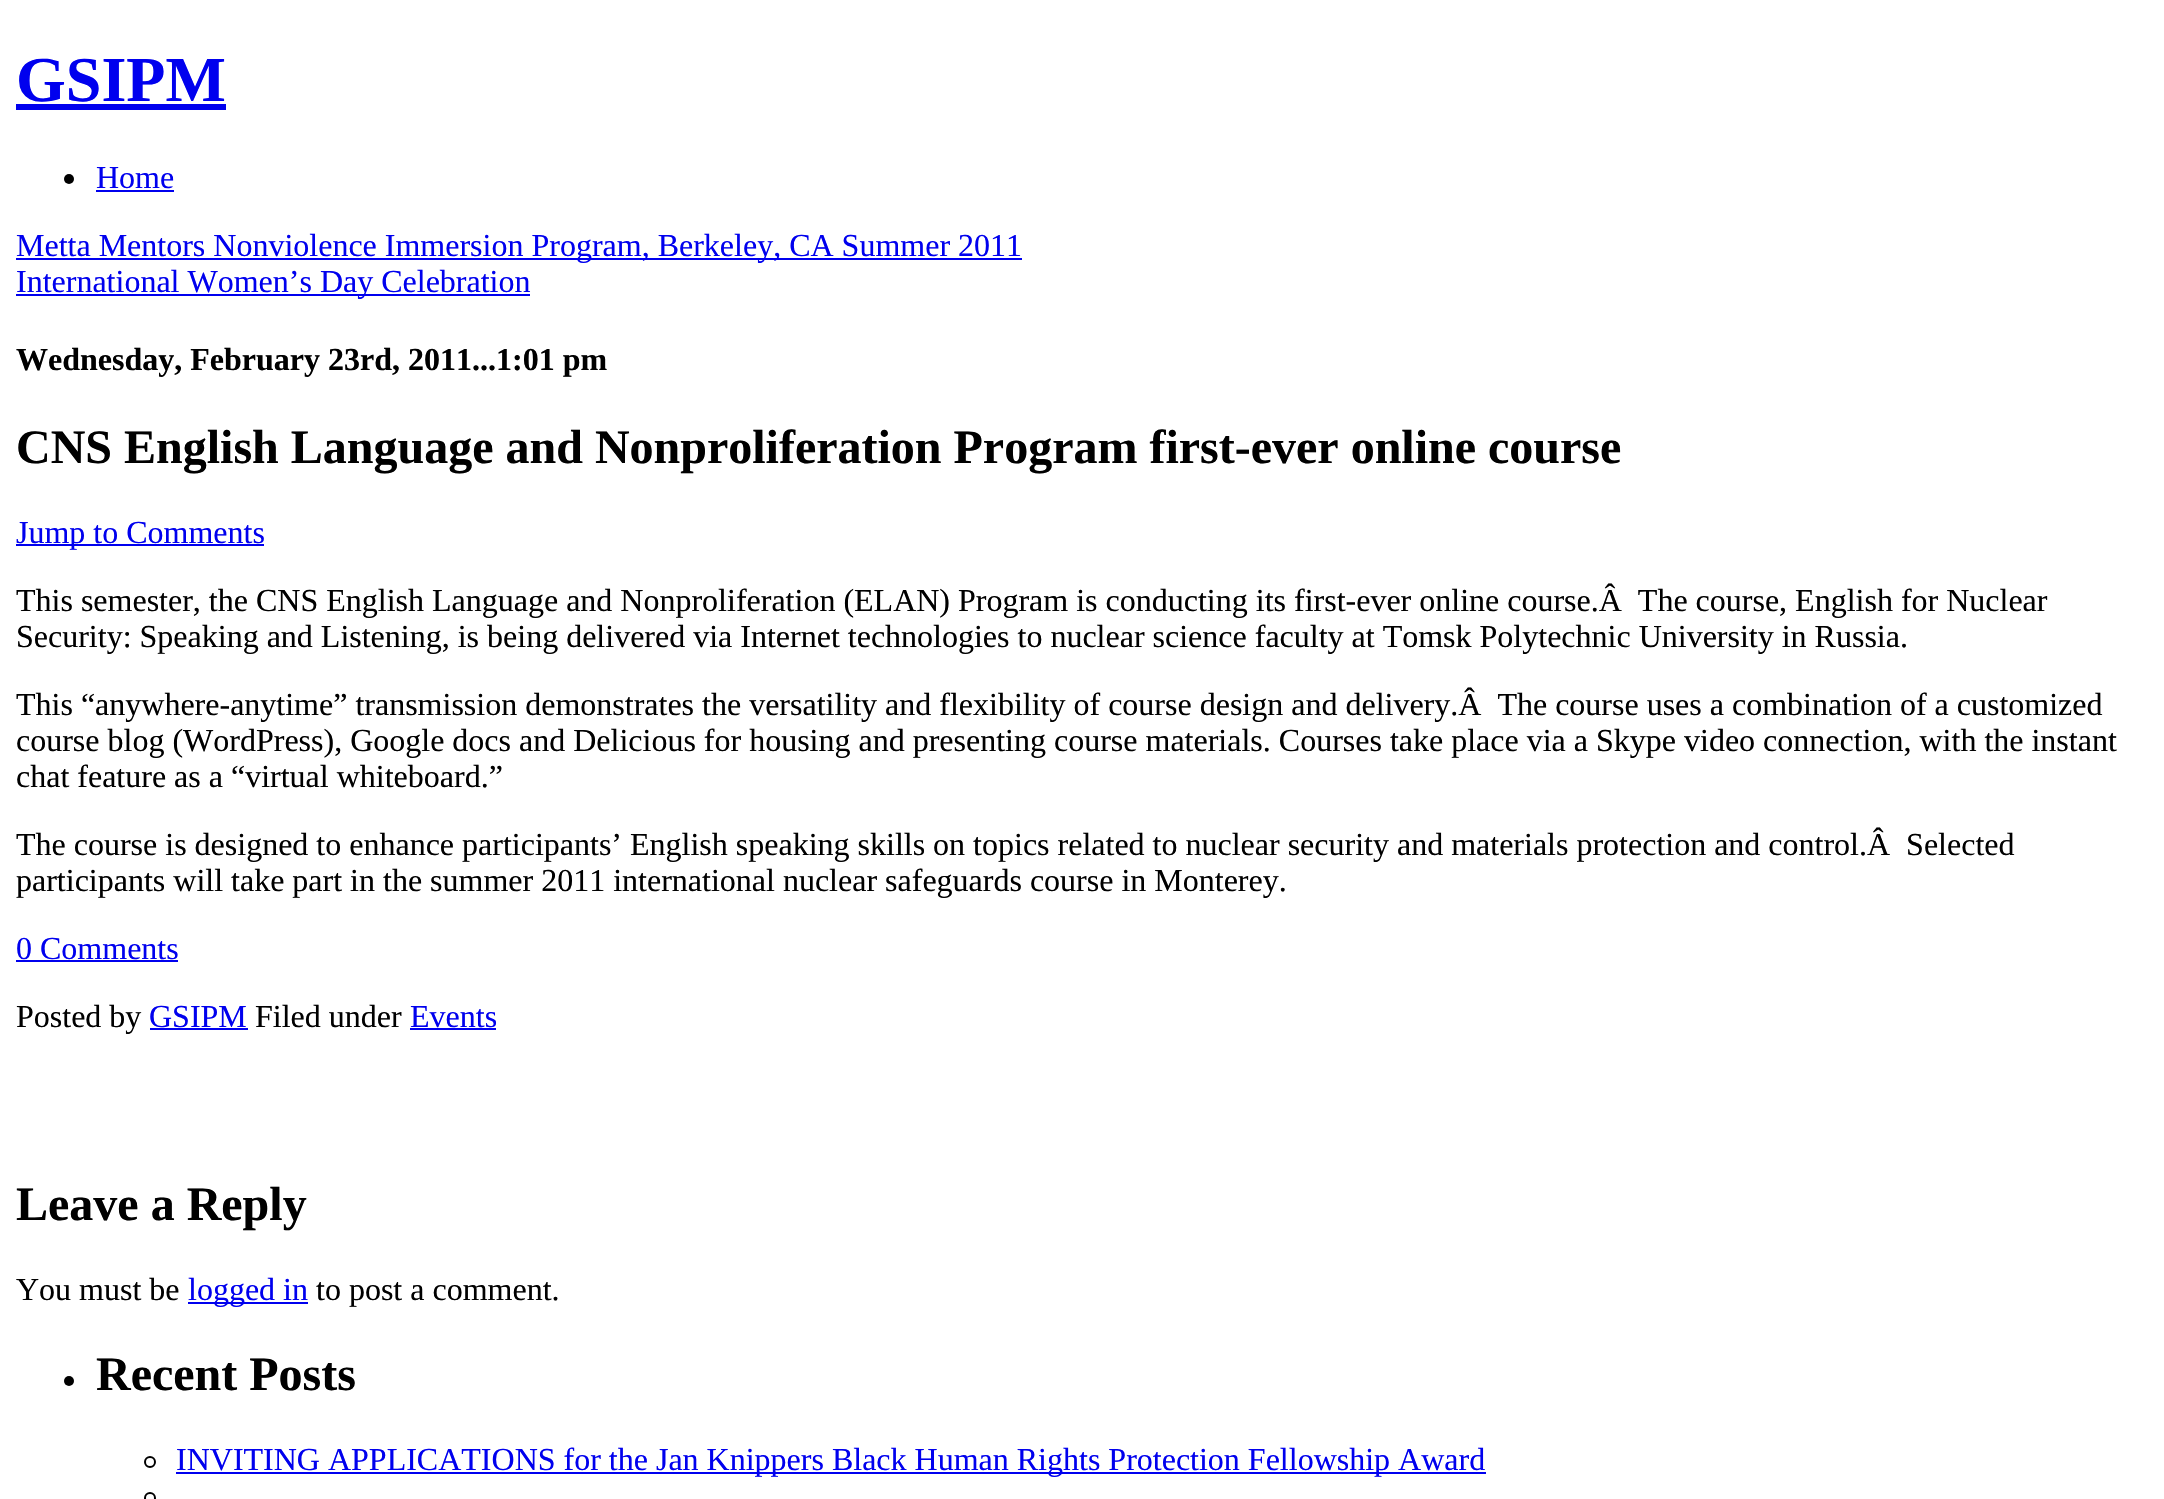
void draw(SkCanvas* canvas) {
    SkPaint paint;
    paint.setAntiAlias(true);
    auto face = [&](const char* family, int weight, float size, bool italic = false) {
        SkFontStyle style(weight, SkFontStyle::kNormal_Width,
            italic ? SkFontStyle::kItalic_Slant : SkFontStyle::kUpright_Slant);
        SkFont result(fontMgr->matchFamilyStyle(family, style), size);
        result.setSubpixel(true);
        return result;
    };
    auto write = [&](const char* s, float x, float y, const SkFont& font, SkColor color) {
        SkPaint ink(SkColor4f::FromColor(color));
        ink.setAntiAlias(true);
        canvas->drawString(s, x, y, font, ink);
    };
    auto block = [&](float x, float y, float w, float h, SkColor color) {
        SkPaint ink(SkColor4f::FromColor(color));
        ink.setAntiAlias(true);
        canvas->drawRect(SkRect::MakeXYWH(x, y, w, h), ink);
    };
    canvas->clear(SK_ColorWHITE);
    auto kFont1 = face("Liberation Serif", 700, 64);
    write("GSIPM", 16, 101, kFont1, SkColorSetRGB(0, 0, 238));
    block(16, 104, 210, 6, SkColorSetRGB(0, 0, 238));
    paint.setColor(SK_ColorBLACK);
    canvas->drawCircle(69, 179, 5, paint);
    auto kFont2 = face("Liberation Serif", 400, 32);
    write("Home", 96, 188, kFont2, SkColorSetRGB(0, 0, 238));
    block(96, 190, 78, 2, SkColorSetRGB(0, 0, 238));
    block(16, 258, 1006, 2, SkColorSetRGB(0, 0, 238));
    write("Metta Mentors Nonviolence Immersion Program, Berkeley, CA Summer 2011", 16, 256, kFont2, SkColorSetRGB(0, 0, 238));
    block(16, 294, 514, 2, SkColorSetRGB(0, 0, 238));
    write("International Women’s Day Celebration", 16, 292, kFont2, SkColorSetRGB(0, 0, 238));
    auto kFont3 = face("Liberation Serif", 700, 32);
    write("Wednesday, February 23rd, 2011...1:01 pm", 16, 370, kFont3, SK_ColorBLACK);
    auto kFont4 = face("Liberation Serif", 700, 48);
    write("CNS English Language and Nonproliferation Program first-ever online course", 16, 463, kFont4, SK_ColorBLACK);
    block(16, 544, 248, 2, SkColorSetRGB(0, 0, 238));
    write("Jump to Comments", 16, 543, kFont2, SkColorSetRGB(0, 0, 238));
    write("This semester, the CNS English Language and Nonproliferation (ELAN) Program is conducting its first-ever online course.Â  The course, English for Nuclear", 16, 611, kFont2, SK_ColorBLACK);
    write("Security: Speaking and Listening, is being delivered via Internet technologies to nuclear science faculty at Tomsk Polytechnic University in Russia.", 16, 647, kFont2, SK_ColorBLACK);
    write("This “anywhere-anytime” transmission demonstrates the versatility and flexibility of course design and delivery.Â  The course uses a combination of a customized", 16, 715, kFont2, SK_ColorBLACK);
    write("course blog (WordPress), Google docs and Delicious for housing and presenting course materials. Courses take place via a Skype video connection, with the instant", 16, 751, kFont2, SK_ColorBLACK);
    write("chat feature as a “virtual whiteboard.”", 16, 787, kFont2, SK_ColorBLACK);
    write("The course is designed to enhance participants’ English speaking skills on topics related to nuclear security and materials protection and control.Â  Selected", 16, 855, kFont2, SK_ColorBLACK);
    write("participants will take part in the summer 2011 international nuclear safeguards course in Monterey.", 16, 891, kFont2, SK_ColorBLACK);
    write("0 Comments", 16, 959, kFont2, SkColorSetRGB(0, 0, 238));
    block(16, 960, 162, 2, SkColorSetRGB(0, 0, 238));
    write("Posted by", 16, 1027, kFont2, SK_ColorBLACK);
    write("GSIPM", 149, 1027, kFont2, SkColorSetRGB(0, 0, 238));
    block(150, 1028, 98, 2, SkColorSetRGB(0, 0, 238));
    write("Filed under", 255, 1027, kFont2, SK_ColorBLACK);
    write("Events", 410, 1027, kFont2, SkColorSetRGB(0, 0, 238));
    block(410, 1028, 86, 2, SkColorSetRGB(0, 0, 238));
    write("Leave a Reply", 16, 1220, kFont4, SK_ColorBLACK);
    write("You must be", 16, 1300, kFont2, SK_ColorBLACK);
    block(188, 1302, 120, 2, SkColorSetRGB(0, 0, 238));
    write("logged in", 188, 1300, kFont2, SkColorSetRGB(0, 0, 238));
    write("to post a comment.", 316, 1300, kFont2, SK_ColorBLACK);
    canvas->drawCircle(69, 1381, 5, paint);
    write("Recent Posts", 96, 1390, kFont4, SK_ColorBLACK);
    paint.setStyle(SkPaint::kStroke_Style);
    paint.setStrokeWidth(2);
    canvas->drawCircle(150, 1462, 5, paint);
    block(176, 1472, 1310, 2, SkColorSetRGB(0, 0, 238));
    write("INVITING APPLICATIONS for the Jan Knippers Black Human Rights Protection Fellowship Award", 176, 1470, kFont2, SkColorSetRGB(0, 0, 238));
    canvas->drawCircle(150, 1498, 5, paint);
}
